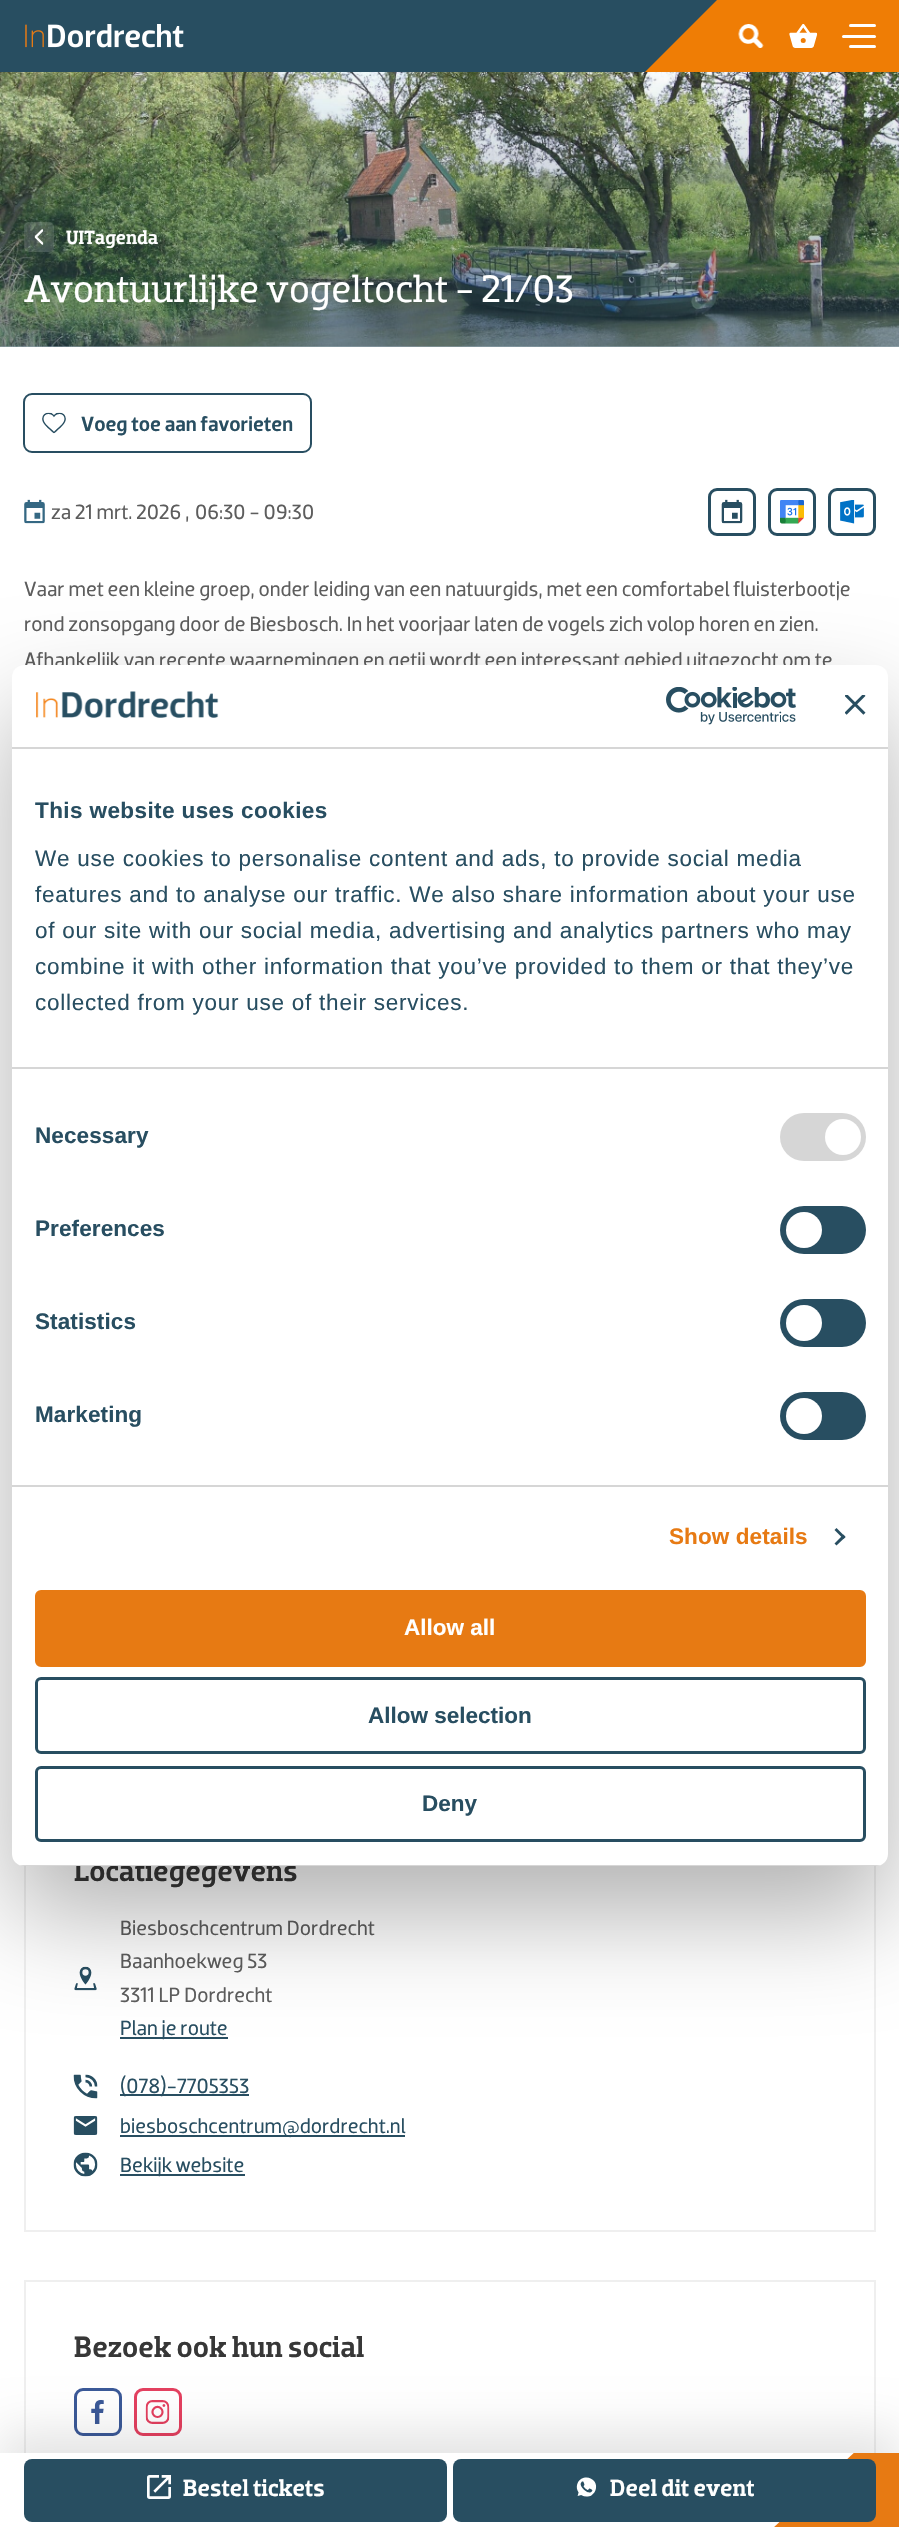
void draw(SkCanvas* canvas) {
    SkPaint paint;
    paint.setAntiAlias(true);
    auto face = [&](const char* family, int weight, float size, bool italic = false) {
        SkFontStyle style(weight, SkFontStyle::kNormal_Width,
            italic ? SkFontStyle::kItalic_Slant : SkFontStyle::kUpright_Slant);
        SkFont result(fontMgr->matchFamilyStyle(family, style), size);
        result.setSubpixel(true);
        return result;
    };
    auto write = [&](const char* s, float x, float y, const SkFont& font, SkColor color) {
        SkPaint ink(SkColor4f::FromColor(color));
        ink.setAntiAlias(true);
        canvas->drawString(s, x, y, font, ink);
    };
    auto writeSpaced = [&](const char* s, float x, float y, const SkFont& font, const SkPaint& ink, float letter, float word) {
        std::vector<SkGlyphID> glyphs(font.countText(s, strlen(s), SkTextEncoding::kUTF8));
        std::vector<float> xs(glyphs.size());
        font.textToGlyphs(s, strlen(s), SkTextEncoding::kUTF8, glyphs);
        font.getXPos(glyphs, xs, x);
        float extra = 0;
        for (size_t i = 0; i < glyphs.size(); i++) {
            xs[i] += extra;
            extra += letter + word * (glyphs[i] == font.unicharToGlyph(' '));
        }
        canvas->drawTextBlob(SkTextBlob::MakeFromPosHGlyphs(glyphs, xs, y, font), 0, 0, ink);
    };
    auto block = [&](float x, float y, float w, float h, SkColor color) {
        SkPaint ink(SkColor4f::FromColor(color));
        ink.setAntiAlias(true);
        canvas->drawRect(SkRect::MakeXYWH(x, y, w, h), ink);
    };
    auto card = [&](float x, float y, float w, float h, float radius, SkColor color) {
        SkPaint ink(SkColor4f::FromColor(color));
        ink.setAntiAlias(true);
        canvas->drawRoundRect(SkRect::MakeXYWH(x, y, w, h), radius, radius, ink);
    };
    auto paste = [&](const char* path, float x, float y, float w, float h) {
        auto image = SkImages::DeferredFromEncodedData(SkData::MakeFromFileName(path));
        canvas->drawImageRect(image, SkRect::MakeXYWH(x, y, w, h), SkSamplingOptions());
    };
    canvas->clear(SK_ColorWHITE);
    block(0, 0, 717, 72, SkColorSetRGB(40, 78, 97));
    paint.setColor(SkColorSetRGB(239, 125, 5));
    canvas->drawPath(SkPathBuilder().moveTo(645, 72).lineTo(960, 72).lineTo(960, -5).lineTo(722, -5).close().detach(), paint);
    paste("pic1.png", 25, 24, 159, 24);
    paste("pic2.png", 738, 24, 26, 24);
    paste("pic3.png", 789, 24, 29, 24);
    card(849, 24, 27, 3, 1.5f, SK_ColorWHITE);
    card(842, 35, 34, 3, 1.5f, SK_ColorWHITE);
    card(849, 45, 27, 3, 1.5f, SK_ColorWHITE);
    paste("pic4.png", 0, 72, 899, 275);
    {
        const SkColor colors[] = {SkColorSetARGB(128, 40, 78, 97), SkColorSetARGB(0, 40, 78, 97)};
        const float stops[] = {0, 1};
        const SkPoint ends[] = {{447, 354}, {453, 64}};
        paint.setShader(SkGradientShader::MakeLinear(ends, colors, stops, 2, SkTileMode::kClamp));
        paint.setAlpha(255);
    }
    canvas->drawRect(SkRect::MakeXYWH(0, 72, 899, 275), paint);
    card(24, 222, 30, 30, 5, SkColorSetARGB(38, 255, 255, 255));
    paste("pic5.png", 34, 229, 10, 16);
    auto kFont1 = face("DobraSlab", 500, 19.5f);
    write("UITagenda", 66, 244, kFont1, SK_ColorWHITE);
    auto kFont2 = face("DobraSlab", 400, 39);
    write("Avontuurlijke vogeltocht - 21/03", 24, 302, kFont2, SK_ColorWHITE);
    paint.setStyle(SkPaint::kStroke_Style);
    paint.setStrokeWidth(2);
    paint.setShader(nullptr);
    paint.setColor(SkColorSetRGB(40, 78, 97));
    canvas->drawRoundRect(SkRect::MakeXYWH(24, 394, 287, 58), 8, 8, paint);
    paste("pic6.png", 42, 412, 24, 22);
    auto kFont3 = face("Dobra", 500, 21);
    write("Voeg toe aan favorieten", 81, 431, kFont3, SkColorSetRGB(40, 78, 97));
    paste("pic7.png", 24, 499, 21, 25);
    auto kFont4 = face("Dobra", 400, 21);
    write("za 21 mrt. 2026 ,", 51, 519, kFont4, SkColorSetRGB(93, 93, 93));
    write("06:30 - 09:30", 195, 519, kFont4, SkColorSetRGB(93, 93, 93));
    paint.setStrokeWidth(3);
    canvas->drawRoundRect(SkRect::MakeXYWH(709.5f, 489.5f, 45, 45), 7.5f, 7.5f, paint);
    paste("pic8.png", 721, 499, 22, 25);
    canvas->drawRoundRect(SkRect::MakeXYWH(769.5f, 489.5f, 45, 45), 7.5f, 7.5f, paint);
    paste("pic9.png", 780, 500, 24, 24);
    canvas->drawRoundRect(SkRect::MakeXYWH(829.5f, 489.5f, 45, 45), 7.5f, 7.5f, paint);
    paste("pic10.png", 840, 500, 24, 24);
    write("Vaar met een kleine groep, onder leiding van een natuurgids, met een comfortabel fluisterbootje", 24, 596, kFont4, SkColorSetRGB(93, 93, 93));
    write("rond zonsopgang door de Biesbosch. In het voorjaar laten de vogels zich volop horen en zien.", 24, 631, kFont4, SkColorSetRGB(93, 93, 93));
    write("Afhankelijk van recente waarnemingen en getij wordt een interessant gebied uitgezocht om te", 24, 667, kFont4, SkColorSetRGB(93, 93, 93));
    paint.setStrokeWidth(2);
    paint.setColor(SkColorSetRGB(239, 239, 239));
    canvas->drawRect(SkRect::MakeXYWH(25, 1804, 850, 427), paint);
    auto kFont5 = face("DobraSlab", 500, 30);
    write("Locatiegegevens", 74, 1881, kFont5, SkColorSetRGB(55, 55, 55));
    paste("pic11.png", 74, 1966, 23, 25);
    write("Biesboschcentrum Dordrecht", 120, 1935, kFont4, SkColorSetRGB(93, 93, 93));
    write("Baanhoekweg 53", 120, 1968, kFont4, SkColorSetRGB(93, 93, 93));
    write("3311 LP Dordrecht", 120, 2002, kFont4, SkColorSetRGB(93, 93, 93));
    block(120, 2037, 108, 2, SkColorSetRGB(40, 78, 97));
    write("Plan je route", 120, 2035, kFont4, SkColorSetRGB(40, 78, 97));
    paste("pic12.png", 73, 2074, 25, 25);
    block(120, 2094, 129, 2, SkColorSetRGB(40, 78, 97));
    write("(078)-7705353", 120, 2093, kFont4, SkColorSetRGB(40, 78, 97));
    paste("pic13.png", 73, 2116, 25, 19);
    block(120, 2135, 285, 2, SkColorSetRGB(40, 78, 97));
    write("biesboschcentrum@dordrecht.nl", 120, 2133, kFont4, SkColorSetRGB(40, 78, 97));
    paste("pic14.png", 73, 2152, 25, 25);
    block(120, 2174, 125, 2, SkColorSetRGB(40, 78, 97));
    write("Bekijk website", 120, 2172, kFont4, SkColorSetRGB(40, 78, 97));
    canvas->drawRect(SkRect::MakeXYWH(25, 2281, 850, 204), paint);
    write("Bezoek ook hun social", 74, 2357, kFont5, SkColorSetRGB(55, 55, 55));
    paint.setStrokeWidth(3);
    paint.setColor(SkColorSetRGB(59, 89, 152));
    canvas->drawRoundRect(SkRect::MakeXYWH(75.5f, 2389.5f, 45, 45), 7.5f, 7.5f, paint);
    paste("pic15.png", 91, 2400, 13, 24);
    paint.setColor(SkColorSetRGB(228, 64, 95));
    canvas->drawRoundRect(SkRect::MakeXYWH(135.5f, 2389.5f, 45, 45), 7.5f, 7.5f, paint);
    paste("pic16.png", 145, 2400, 25, 24);
    paint.setStyle(SkPaint::kFill_Style);
    paint.setColor(SkColorSetARGB(26, 0, 0, 0));
    paint.setMaskFilter(SkMaskFilter::MakeBlur(kNormal_SkBlurStyle, 22.5f));
    canvas->drawRect(SkRect::MakeXYWH(0, 2430, 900, 75), paint);
    paint.setMaskFilter(nullptr);
    block(0, 2453, 854, 74, SK_ColorWHITE);
    card(24, 2459, 423, 63, 8, SkColorSetRGB(40, 78, 97));
    paste("pic17.png", 147, 2475, 24, 24);
    auto kFont6 = face("DobraSlab", 500, 24);
    write("Bestel tickets", 183, 2496, kFont6, SK_ColorWHITE);
    canvas->save();
    canvas->clipRect(SkRect::MakeXYWH(773, 2453, 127, 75));
    paint.setColor(SkColorSetRGB(231, 122, 19));
    canvas->drawPath(SkPathBuilder(SkPathFillType::kEvenOdd).moveTo(772, 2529).lineTo(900, 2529).lineTo(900, 2410).close().detach(), paint);
    canvas->restore();
    card(453, 2459, 423, 63, 8, SkColorSetRGB(40, 78, 97));
    paste("pic18.png", 576, 2477, 21, 20);
    write("Deel dit event", 610, 2496, kFont6, SK_ColorWHITE);
    paint.setColor(SkColorSetARGB(77, 0, 0, 0));
    paint.setMaskFilter(SkMaskFilter::MakeBlur(kNormal_SkBlurStyle, 51));
    canvas->drawRoundRect(SkRect::MakeXYWH(12, 713, 876, 1201), 12, 12, paint);
    paint.setMaskFilter(nullptr);
    card(12, 665, 876, 1201, 12, SK_ColorWHITE);
    block(12, 747, 876, 2, SkColorSetRGB(214, 214, 214));
    paste("pic19.png", 36, 691, 183, 27);
    paste("pic20.png", 666, 687, 130, 38);
    paste("pic21.png", 845, 695, 21, 20);
    block(12, 1067, 876, 2, SkColorSetRGB(214, 214, 214));
    auto kFont7 = face("Liberation Sans", 700, 22.5f);
    paint.setColor(SkColorSetRGB(40, 78, 97));
    writeSpaced("This website uses cookies", 35, 818, kFont7, paint, 0.4f, 0);
    auto kFont8 = face("Liberation Sans", 400, 22.5f);
    writeSpaced("We use cookies to personalise content and ads, to provide social media", 35, 866, kFont8, paint, 0.75f, 0);
    writeSpaced("features and to analyse our traffic. We also share information about your use", 35, 902, kFont8, paint, 0.75f, 0);
    writeSpaced("of our site with our social media, advertising and analytics partners who may", 35, 938, kFont8, paint, 0.75f, 0);
    writeSpaced("combine it with other information that you’ve provided to them or that they’ve", 35, 974, kFont8, paint, 0.75f, 0);
    writeSpaced("collected from your use of their services.", 35, 1010, kFont8, paint, 0.75f, 0);
    block(12, 1485, 876, 2, SkColorSetRGB(214, 214, 214));
    writeSpaced("Necessary", 35, 1143, kFont7, paint, 0.1f, 0);
    card(780, 1113, 86, 48, 24, SkColorSetRGB(214, 214, 214));
    paint.setColor(SK_ColorWHITE);
    canvas->drawCircle(843, 1137, 18, paint);
    paint.setColor(SkColorSetRGB(40, 78, 97));
    writeSpaced("Preferences", 35, 1236, kFont7, paint, 0.1f, 0);
    card(780, 1206, 86, 48, 24, SkColorSetRGB(40, 78, 97));
    paint.setColor(SK_ColorWHITE);
    canvas->drawCircle(804, 1230, 18, paint);
    paint.setColor(SkColorSetRGB(40, 78, 97));
    writeSpaced("Statistics", 35, 1329, kFont7, paint, 0.1f, 0);
    card(780, 1299, 86, 48, 24, SkColorSetRGB(40, 78, 97));
    paint.setColor(SK_ColorWHITE);
    canvas->drawCircle(804, 1323, 18, paint);
    paint.setColor(SkColorSetRGB(40, 78, 97));
    writeSpaced("Marketing", 35, 1422, kFont7, paint, 0.1f, 0);
    card(780, 1392, 86, 48, 24, SkColorSetRGB(40, 78, 97));
    paint.setColor(SK_ColorWHITE);
    canvas->drawCircle(804, 1416, 18, paint);
    paint.setColor(SkColorSetRGB(231, 122, 19));
    writeSpaced("Show details", 669, 1544, kFont7, paint, 0.1f, 0);
    paint.setColor(SkColorSetRGB(40, 78, 97));
    canvas->drawPath(SkPathBuilder().moveTo(836.5f, 1528).lineTo(845.5f, 1537).lineTo(843.5f, 1539).lineTo(834.5f, 1530).close().detach(), paint);
    canvas->drawPath(SkPathBuilder().moveTo(843.5f, 1534.5f).lineTo(845.5f, 1537).lineTo(836.5f, 1545.5f).lineTo(834.5f, 1543.5f).close().detach(), paint);
    canvas->save();
    canvas->clipPath(SkPathBuilder().moveTo(24, 665).lineTo(876, 665).cubicTo(882.5f, 665, 888, 670.5f, 888, 677).lineTo(888, 1854).cubicTo(888, 1860.5f, 882.5f, 1866, 876, 1866).lineTo(24, 1866).cubicTo(17.5f, 1866, 12, 1860.5f, 12, 1854).lineTo(12, 677).cubicTo(12, 670.5f, 17.5f, 665, 24, 665).close().detach(), true);
    block(12, 1865, 876, 1, SkColorSetRGB(214, 214, 214));
    canvas->restore();
    paint.setColor(SkColorSetRGB(231, 122, 19));
    canvas->drawRoundRect(SkRect::MakeXYWH(36.5f, 1591.5f, 828, 74), 4.5f, 4.5f, paint);
    paint.setStyle(SkPaint::kStroke_Style);
    canvas->drawRoundRect(SkRect::MakeXYWH(36.5f, 1591.5f, 828, 74), 4.5f, 4.5f, paint);
    write("Allow all", 404, 1635, kFont7, SK_ColorWHITE);
    paint.setColor(SkColorSetRGB(40, 78, 97));
    canvas->drawRoundRect(SkRect::MakeXYWH(36.5f, 1678.5f, 828, 74), 4.5f, 4.5f, paint);
    write("Allow selection", 368, 1723, kFont7, SkColorSetRGB(40, 78, 97));
    canvas->drawRoundRect(SkRect::MakeXYWH(36.5f, 1767.5f, 828, 73), 4.5f, 4.5f, paint);
    write("Deny", 422, 1811, kFont7, SkColorSetRGB(40, 78, 97));
}
